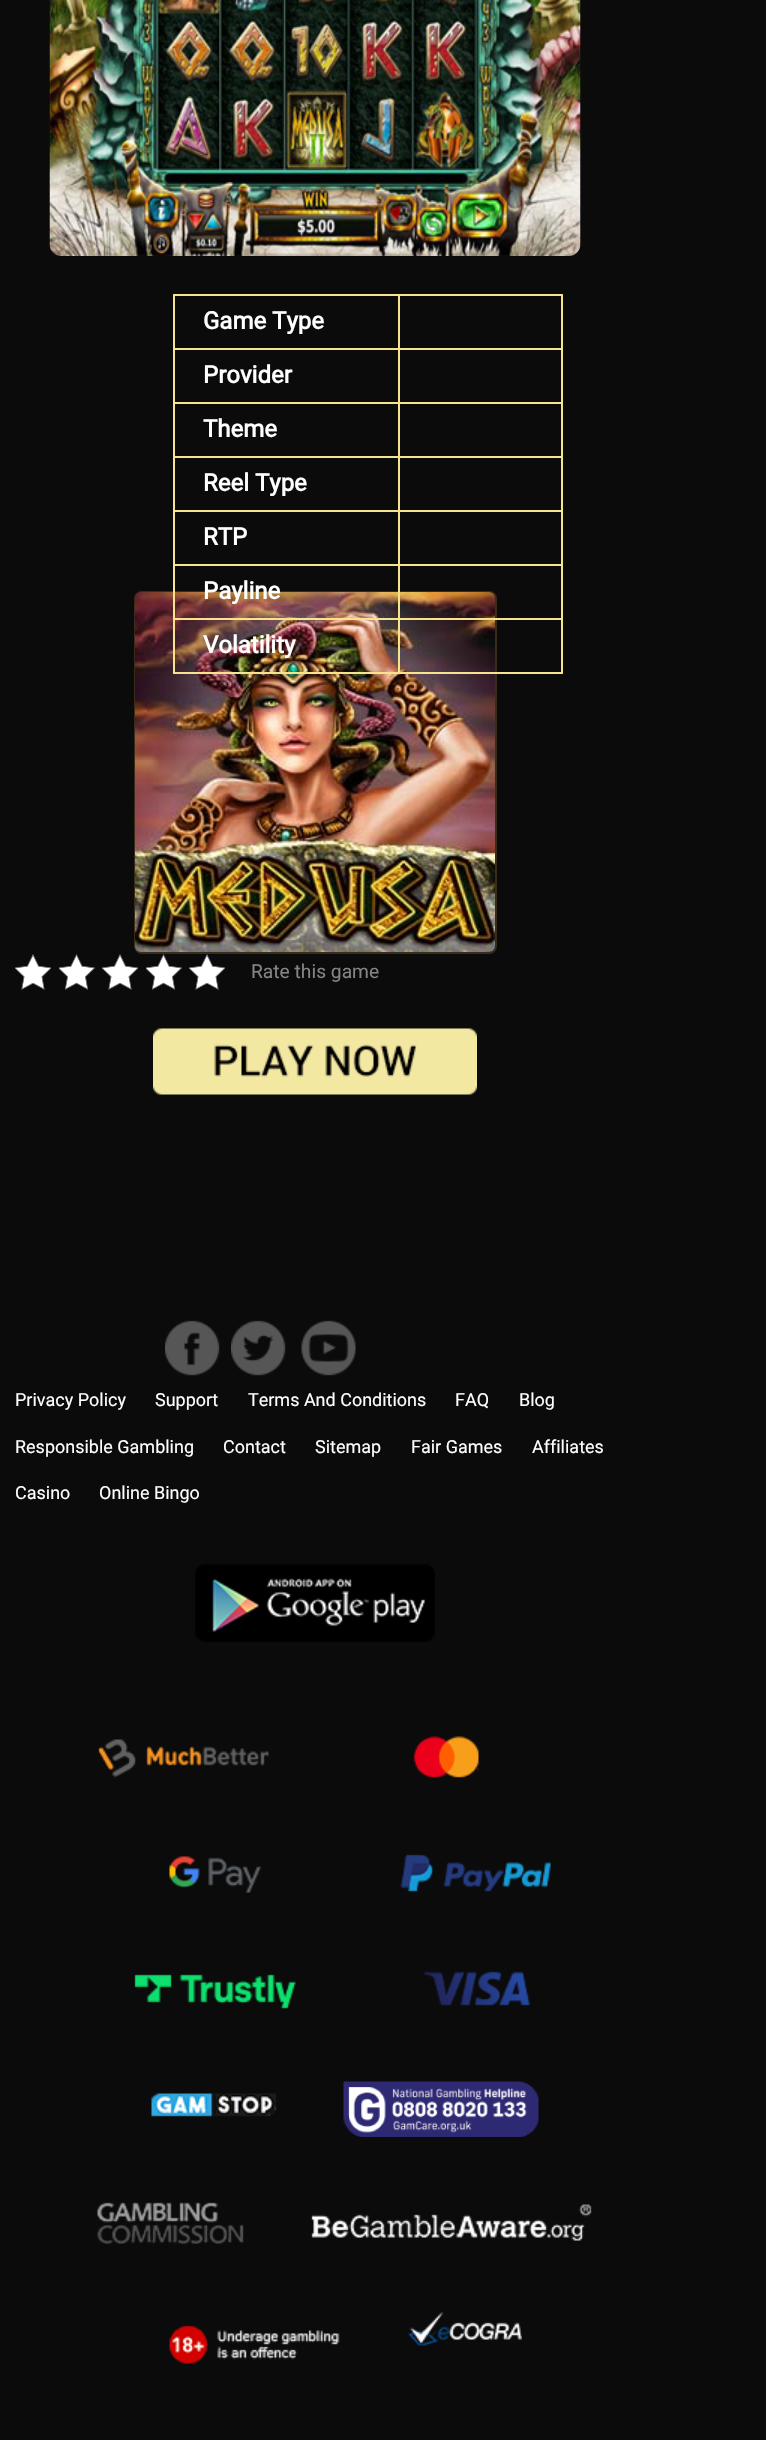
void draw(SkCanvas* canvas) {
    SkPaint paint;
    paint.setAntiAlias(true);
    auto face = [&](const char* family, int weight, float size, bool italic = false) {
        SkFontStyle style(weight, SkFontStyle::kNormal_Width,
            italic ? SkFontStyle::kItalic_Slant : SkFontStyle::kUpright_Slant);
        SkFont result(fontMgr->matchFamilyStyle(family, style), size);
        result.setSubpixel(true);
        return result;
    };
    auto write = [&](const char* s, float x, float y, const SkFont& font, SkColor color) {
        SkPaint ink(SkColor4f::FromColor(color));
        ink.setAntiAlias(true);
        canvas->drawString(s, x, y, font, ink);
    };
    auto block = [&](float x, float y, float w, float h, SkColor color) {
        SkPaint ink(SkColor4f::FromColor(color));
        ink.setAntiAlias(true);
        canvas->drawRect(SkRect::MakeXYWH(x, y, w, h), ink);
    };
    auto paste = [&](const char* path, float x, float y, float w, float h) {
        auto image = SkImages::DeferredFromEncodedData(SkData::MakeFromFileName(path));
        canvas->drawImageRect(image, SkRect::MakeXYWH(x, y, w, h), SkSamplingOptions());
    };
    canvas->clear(SkColorSetRGB(11, 11, 11));
    paste("pic1.png", 49, 0, 532, 256);
    block(398, 294, 165, 2, SkColorSetRGB(245, 227, 141));
    block(398, 348, 165, 2, SkColorSetRGB(245, 227, 141));
    block(398, 402, 165, 2, SkColorSetRGB(245, 227, 141));
    block(398, 456, 165, 2, SkColorSetRGB(245, 227, 141));
    block(398, 510, 165, 2, SkColorSetRGB(245, 227, 141));
    block(398, 564, 165, 2, SkColorSetRGB(245, 227, 141));
    paint.setStyle(SkPaint::kStroke_Style);
    paint.setStrokeWidth(2);
    paint.setColor(SkColorSetRGB(59, 44, 23));
    canvas->drawRoundRect(SkRect::MakeXYWH(135, 592, 361, 361), 7, 7, paint);
    paste("pic2.png", 135, 592, 360, 360);
    block(398, 618, 165, 2, SkColorSetRGB(245, 227, 141));
    block(561, 618, 2, 56, SkColorSetRGB(245, 227, 141));
    block(398, 672, 165, 2, SkColorSetRGB(245, 227, 141));
    block(398, 618, 2, 56, SkColorSetRGB(245, 227, 141));
    block(173, 618, 226, 2, SkColorSetRGB(245, 227, 141));
    block(398, 564, 2, 56, SkColorSetRGB(245, 227, 141));
    block(173, 564, 226, 2, SkColorSetRGB(245, 227, 141));
    block(398, 510, 2, 56, SkColorSetRGB(245, 227, 141));
    block(173, 510, 226, 2, SkColorSetRGB(245, 227, 141));
    block(398, 456, 2, 56, SkColorSetRGB(245, 227, 141));
    block(173, 456, 226, 2, SkColorSetRGB(245, 227, 141));
    block(398, 402, 2, 56, SkColorSetRGB(245, 227, 141));
    block(173, 402, 226, 2, SkColorSetRGB(245, 227, 141));
    block(398, 348, 2, 56, SkColorSetRGB(245, 227, 141));
    block(173, 348, 226, 2, SkColorSetRGB(245, 227, 141));
    block(398, 294, 2, 56, SkColorSetRGB(245, 227, 141));
    block(173, 294, 226, 2, SkColorSetRGB(245, 227, 141));
    block(173, 672, 226, 2, SkColorSetRGB(245, 227, 141));
    block(173, 618, 2, 56, SkColorSetRGB(245, 227, 141));
    block(173, 564, 2, 56, SkColorSetRGB(245, 227, 141));
    block(173, 510, 2, 56, SkColorSetRGB(245, 227, 141));
    block(173, 456, 2, 56, SkColorSetRGB(245, 227, 141));
    block(173, 402, 2, 56, SkColorSetRGB(245, 227, 141));
    block(173, 348, 2, 56, SkColorSetRGB(245, 227, 141));
    block(173, 294, 2, 56, SkColorSetRGB(245, 227, 141));
    auto kFont1 = face("Roboto", 700, 24);
    write("Game Type", 203, 329, kFont1, SK_ColorWHITE);
    block(561, 564, 2, 56, SkColorSetRGB(245, 227, 141));
    block(561, 510, 2, 56, SkColorSetRGB(245, 227, 141));
    block(561, 456, 2, 56, SkColorSetRGB(245, 227, 141));
    block(561, 402, 2, 56, SkColorSetRGB(245, 227, 141));
    block(561, 348, 2, 56, SkColorSetRGB(245, 227, 141));
    block(561, 294, 2, 56, SkColorSetRGB(245, 227, 141));
    write("Provider", 203, 383, kFont1, SK_ColorWHITE);
    write("Theme", 203, 437, kFont1, SK_ColorWHITE);
    write("Reel Type", 203, 491, kFont1, SK_ColorWHITE);
    write("RTP", 203, 545, kFont1, SK_ColorWHITE);
    write("Payline", 203, 599, kFont1, SK_ColorWHITE);
    write("Volatility", 203, 653, kFont1, SK_ColorWHITE);
    paste("pic3.png", 15, 954, 36, 36);
    paste("pic4.png", 59, 954, 36, 36);
    paste("pic3.png", 102, 954, 36, 36);
    paste("pic4.png", 146, 954, 36, 36);
    paste("pic3.png", 189, 954, 36, 36);
    auto kFont2 = face("Roboto", 400, 19.25f);
    write("Rate this game", 251, 978, kFont2, SkColorSetRGB(133, 133, 133));
    paste("pic5.png", 153, 1028, 324, 67);
    paste("pic6.png", 165, 1320, 55, 56);
    paste("pic7.png", 231, 1320, 55, 56);
    paste("pic8.png", 301, 1320, 55, 56);
    auto kFont3 = face("Roboto", 400, 18);
    write("Privacy Policy", 15, 1406, kFont3, SK_ColorWHITE);
    write("Support", 155, 1406, kFont3, SK_ColorWHITE);
    write("Terms And Conditions", 248, 1406, kFont3, SK_ColorWHITE);
    write("FAQ", 455, 1406, kFont3, SK_ColorWHITE);
    write("Blog", 519, 1406, kFont3, SK_ColorWHITE);
    write("Responsible Gambling", 15, 1453, kFont3, SK_ColorWHITE);
    write("Contact", 223, 1453, kFont3, SK_ColorWHITE);
    write("Sitemap", 315, 1453, kFont3, SK_ColorWHITE);
    write("Fair Games", 411, 1453, kFont3, SK_ColorWHITE);
    write("Affiliates", 532, 1453, kFont3, SK_ColorWHITE);
    write("Casino", 15, 1499, kFont3, SK_ColorWHITE);
    write("Online Bingo", 99, 1499, kFont3, SK_ColorWHITE);
    paste("pic9.png", 195, 1564, 240, 78);
    paste("pic10.png", 98, 1739, 171, 39);
    paste("pic11.png", 413, 1736, 66, 42);
    paste("pic12.png", 169, 1856, 93, 37);
    paste("pic13.png", 400, 1854, 151, 38);
    paste("pic14.png", 134, 1974, 162, 35);
    paste("pic15.png", 423, 1971, 107, 35);
    paste("pic16.png", 151, 2093, 126, 24);
    paste("pic17.png", 343, 2081, 196, 56);
    paste("pic18.png", 97, 2202, 147, 42);
    paste("pic19.png", 311, 2204, 281, 37);
    paste("pic20.png", 169, 2325, 171, 39);
    paste("pic21.png", 408, 2312, 114, 34);
}
